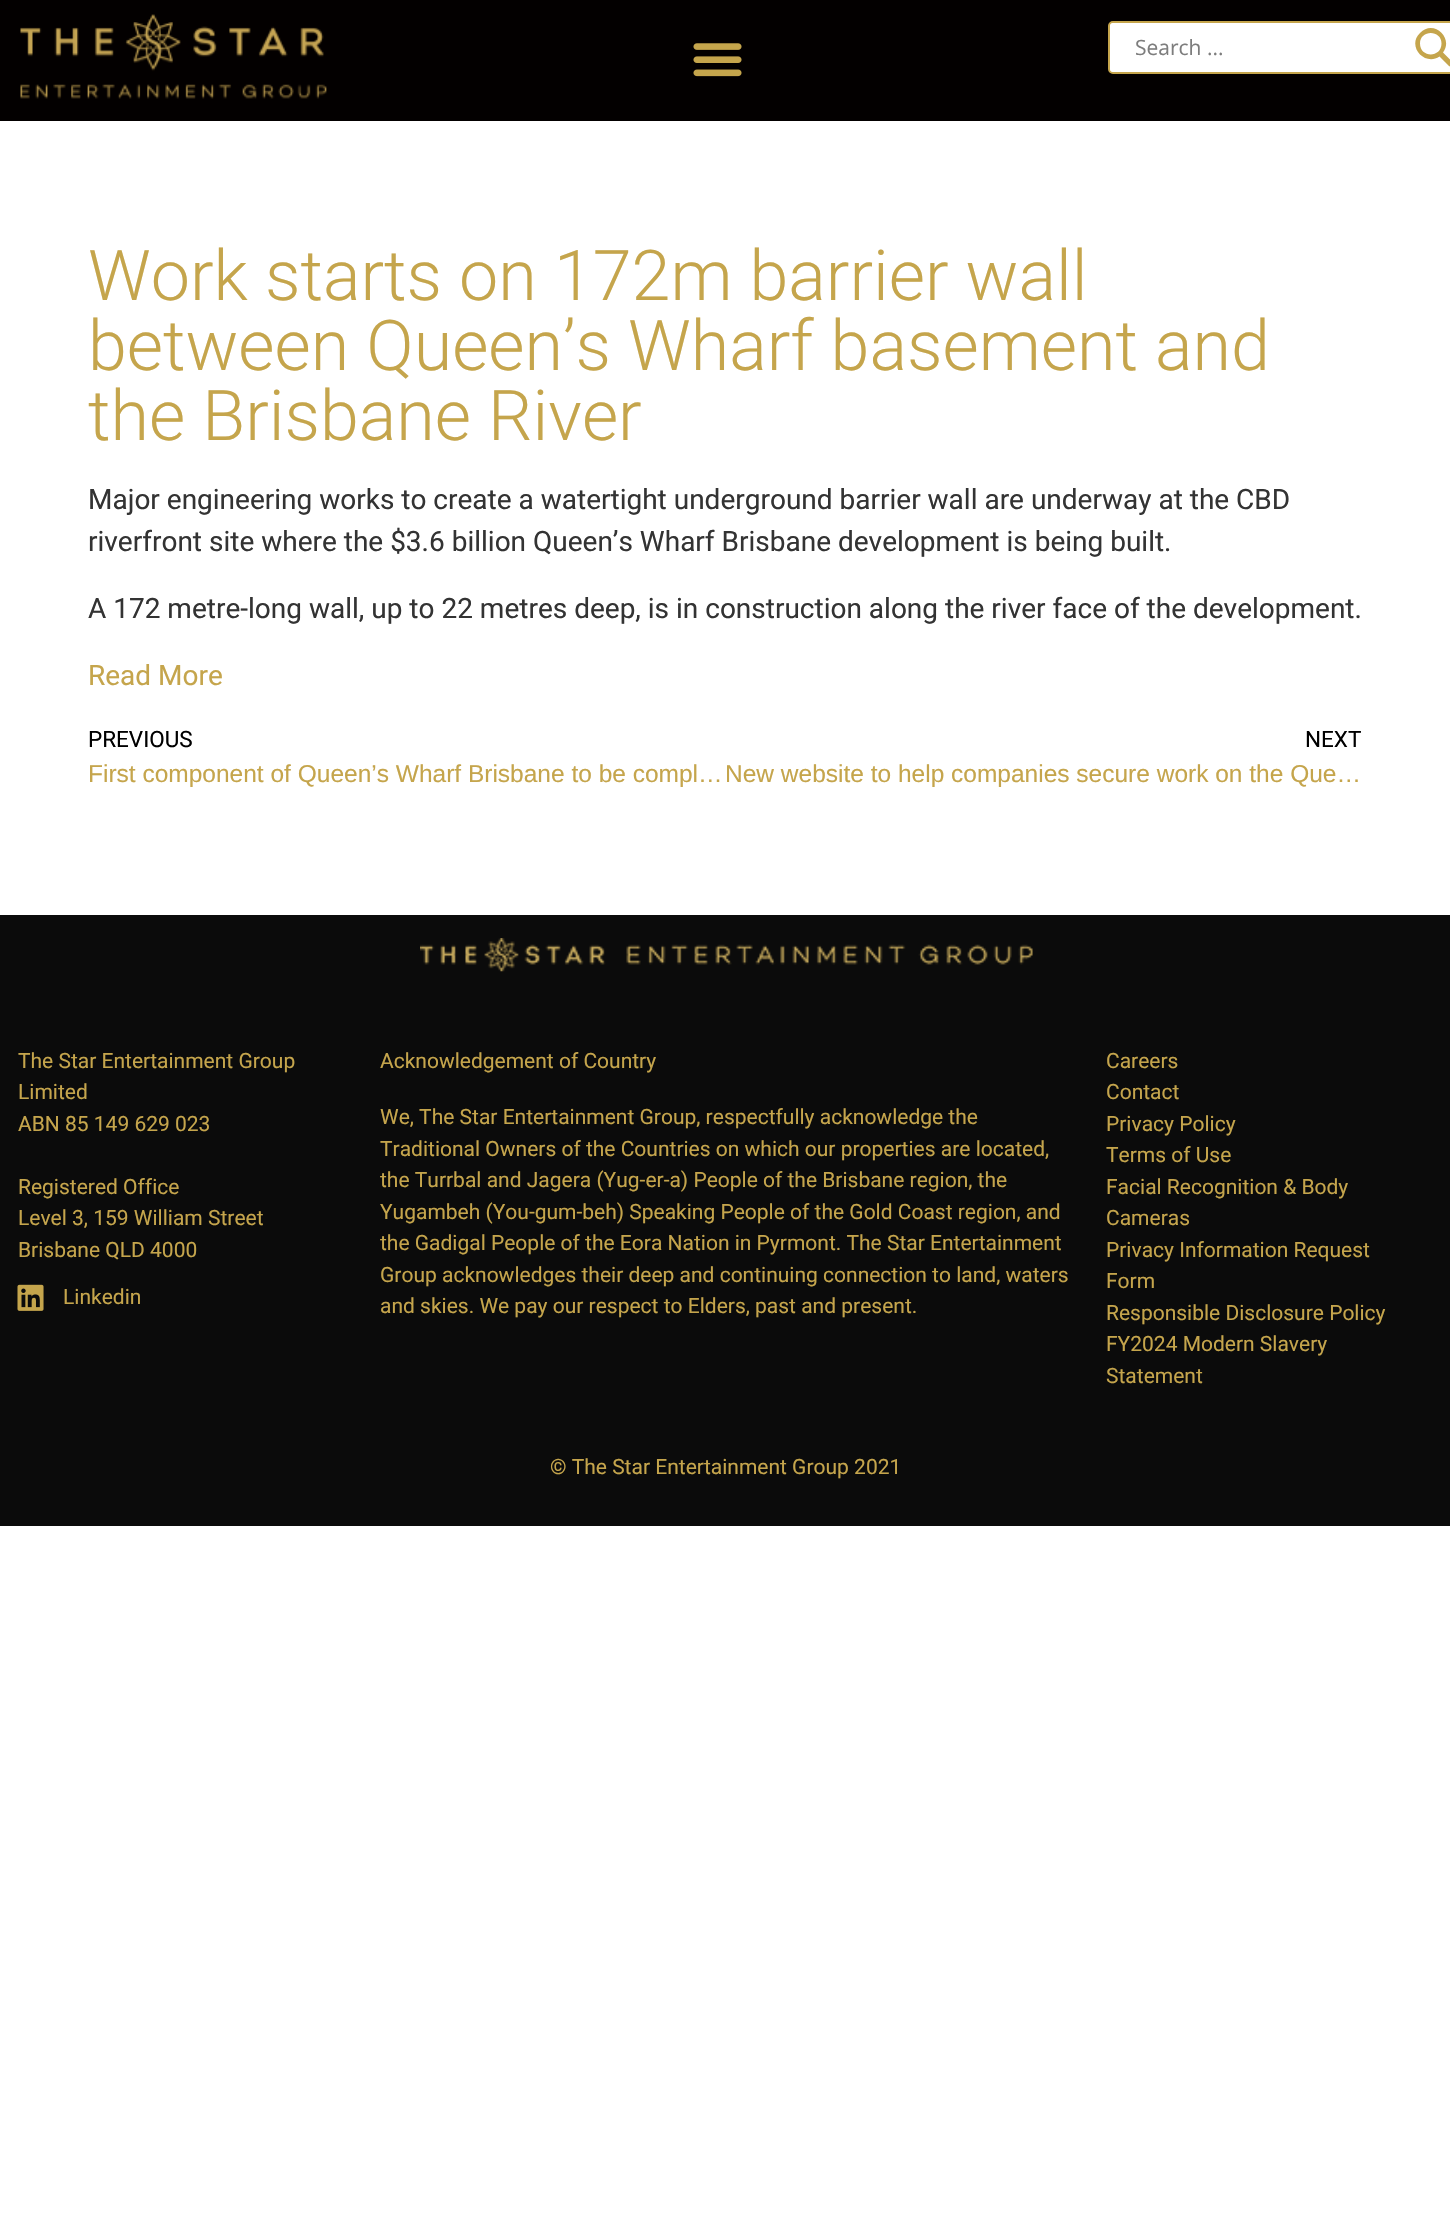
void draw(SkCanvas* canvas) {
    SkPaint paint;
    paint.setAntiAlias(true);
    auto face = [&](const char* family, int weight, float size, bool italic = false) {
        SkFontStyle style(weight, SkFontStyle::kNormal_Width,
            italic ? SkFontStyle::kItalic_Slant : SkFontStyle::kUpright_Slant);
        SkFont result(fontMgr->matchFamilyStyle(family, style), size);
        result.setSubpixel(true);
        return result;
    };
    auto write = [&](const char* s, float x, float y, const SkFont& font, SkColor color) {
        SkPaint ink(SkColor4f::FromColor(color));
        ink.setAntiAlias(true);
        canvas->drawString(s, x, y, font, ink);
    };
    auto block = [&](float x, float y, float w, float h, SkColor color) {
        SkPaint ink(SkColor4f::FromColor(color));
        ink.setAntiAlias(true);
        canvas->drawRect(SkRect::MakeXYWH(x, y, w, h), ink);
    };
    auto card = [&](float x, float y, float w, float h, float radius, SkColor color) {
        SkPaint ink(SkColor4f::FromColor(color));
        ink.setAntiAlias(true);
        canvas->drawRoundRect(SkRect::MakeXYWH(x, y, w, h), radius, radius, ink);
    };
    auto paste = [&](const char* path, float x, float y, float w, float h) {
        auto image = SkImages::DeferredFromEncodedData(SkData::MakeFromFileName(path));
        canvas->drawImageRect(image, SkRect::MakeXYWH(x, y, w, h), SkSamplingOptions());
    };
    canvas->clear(SK_ColorWHITE);
    block(0, 0, 1450, 121, SkColorSetRGB(3, 0, 0));
    paste("pic1.png", 20, 14, 307, 85);
    paste("pic2.png", 693, 43, 49, 34);
    paint.setColor(SK_ColorWHITE);
    canvas->drawRoundRect(SkRect::MakeXYWH(1109, 22, 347, 51), 4, 4, paint);
    paint.setStyle(SkPaint::kStroke_Style);
    paint.setStrokeWidth(2);
    paint.setColor(SkColorSetRGB(197, 165, 76));
    canvas->drawRoundRect(SkRect::MakeXYWH(1109, 22, 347, 51), 4, 4, paint);
    card(1110, 23, 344, 49, 4, SK_ColorWHITE);
    auto kFont1 = face("Open Sans", 400, 21);
    write("Search ...", 1135, 55, kFont1, SkColorSetRGB(125, 125, 125));
    paint.setStyle(SkPaint::kFill_Style);
    canvas->drawPath(SkPathBuilder().moveTo(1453, 62.5f).lineTo(1443, 52.5f).cubicTo(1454, 38, 1433.5f, 19, 1420, 33).cubicTo(1406.5f, 46, 1424.5f, 66.5f, 1439.5f, 56.5f).lineTo(1449.5f, 66.5f).close().moveTo(1420, 43.5f).cubicTo(1420, 29.5f, 1441.5f, 29.5f, 1441.5f, 43.5f).cubicTo(1441.5f, 58, 1420, 58, 1420, 43.5f).close().detach(), paint);
    auto kFont2 = face("Roboto", 300, 70);
    write("Work starts on 172m barrier wall", 88, 300, kFont2, SkColorSetRGB(197, 165, 76));
    write("between Queen’s Wharf basement and", 88, 370, kFont2, SkColorSetRGB(197, 165, 76));
    write("the Brisbane River", 88, 440, kFont2, SkColorSetRGB(197, 165, 76));
    auto kFont3 = face("Roboto", 400, 28);
    write("Major engineering works to create a watertight underground barrier wall are underway at the CBD", 88, 509, kFont3, SkColorSetRGB(51, 51, 51));
    write("riverfront site where the $3.6 billion Queen’s Wharf Brisbane development is being built.", 88, 551, kFont3, SkColorSetRGB(51, 51, 51));
    write("A 172 metre-long wall, up to 22 metres deep, is in construction along the river face of the development.", 88, 618, kFont3, SkColorSetRGB(51, 51, 51));
    write("Read More", 88, 685, kFont3, SkColorSetRGB(197, 165, 76));
    auto kFont4 = face("Roboto", 400, 22.5f);
    write("PREVIOUS", 88, 747, kFont4, SK_ColorBLACK);
    auto kFont5 = face("Liberation Sans", 400, 24.5f);
    write("First component of Queen’s Wharf Brisbane to be compl…", 88, 782, kFont5, SkColorSetRGB(197, 165, 76));
    write("NEXT", 1305, 747, kFont4, SK_ColorBLACK);
    write("New website to help companies secure work on the Que…", 725, 782, kFont5, SkColorSetRGB(197, 165, 76));
    block(0, 915, 1450, 611, SkColorSetRGB(11, 11, 11));
    paste("pic3.png", 420, 938, 613, 34);
    auto kFont6 = face("Roboto", 400, 21);
    write("The Star Entertainment Group", 18, 1068, kFont6, SkColorSetRGB(197, 165, 76));
    write("Limited", 18, 1099, kFont6, SkColorSetRGB(197, 165, 76));
    write("ABN 85 149 629 023", 18, 1131, kFont6, SkColorSetRGB(197, 165, 76));
    write("Registered Office", 18, 1194, kFont6, SkColorSetRGB(197, 165, 76));
    write("Level 3, 159 William Street", 18, 1225, kFont6, SkColorSetRGB(197, 165, 76));
    write("Brisbane QLD 4000", 18, 1257, kFont6, SkColorSetRGB(197, 165, 76));
    paste("pic4.png", 17, 1284, 27, 27);
    write("Linkedin", 63, 1304, kFont6, SkColorSetRGB(197, 165, 76));
    write("Acknowledgement of Country", 380, 1068, kFont6, SkColorSetRGB(197, 165, 76));
    write("We, The Star Entertainment Group, respectfully acknowledge the", 380, 1124, kFont6, SkColorSetRGB(197, 165, 76));
    write("Traditional Owners of the Countries on which our properties are located,", 380, 1156, kFont6, SkColorSetRGB(197, 165, 76));
    write("the Turrbal and Jagera (Yug-er-a) People of the Brisbane region, the", 380, 1187, kFont6, SkColorSetRGB(197, 165, 76));
    write("Yugambeh (You-gum-beh) Speaking People of the Gold Coast region, and", 380, 1219, kFont6, SkColorSetRGB(197, 165, 76));
    write("the Gadigal People of the Eora Nation in Pyrmont. The Star Entertainment", 380, 1250, kFont6, SkColorSetRGB(197, 165, 76));
    write("Group acknowledges their deep and continuing connection to land, waters", 380, 1282, kFont6, SkColorSetRGB(197, 165, 76));
    write("and skies. We pay our respect to Elders, past and present.", 380, 1313, kFont6, SkColorSetRGB(197, 165, 76));
    write("Careers", 1106, 1068, kFont6, SkColorSetRGB(197, 165, 76));
    write("Contact", 1106, 1099, kFont6, SkColorSetRGB(197, 165, 76));
    write("Privacy Policy", 1106, 1131, kFont6, SkColorSetRGB(197, 165, 76));
    write("Terms of Use", 1106, 1162, kFont6, SkColorSetRGB(197, 165, 76));
    write("Facial Recognition & Body", 1106, 1194, kFont6, SkColorSetRGB(197, 165, 76));
    write("Cameras", 1106, 1225, kFont6, SkColorSetRGB(197, 165, 76));
    write("Privacy Information Request", 1106, 1257, kFont6, SkColorSetRGB(197, 165, 76));
    write("Form", 1106, 1288, kFont6, SkColorSetRGB(197, 165, 76));
    write("Responsible Disclosure Policy", 1106, 1320, kFont6, SkColorSetRGB(197, 165, 76));
    write("FY2024 Modern Slavery", 1106, 1351, kFont6, SkColorSetRGB(197, 165, 76));
    write("Statement", 1106, 1383, kFont6, SkColorSetRGB(197, 165, 76));
    write("© The Star Entertainment Group 2021", 550, 1474, kFont6, SkColorSetRGB(197, 165, 76));
}
